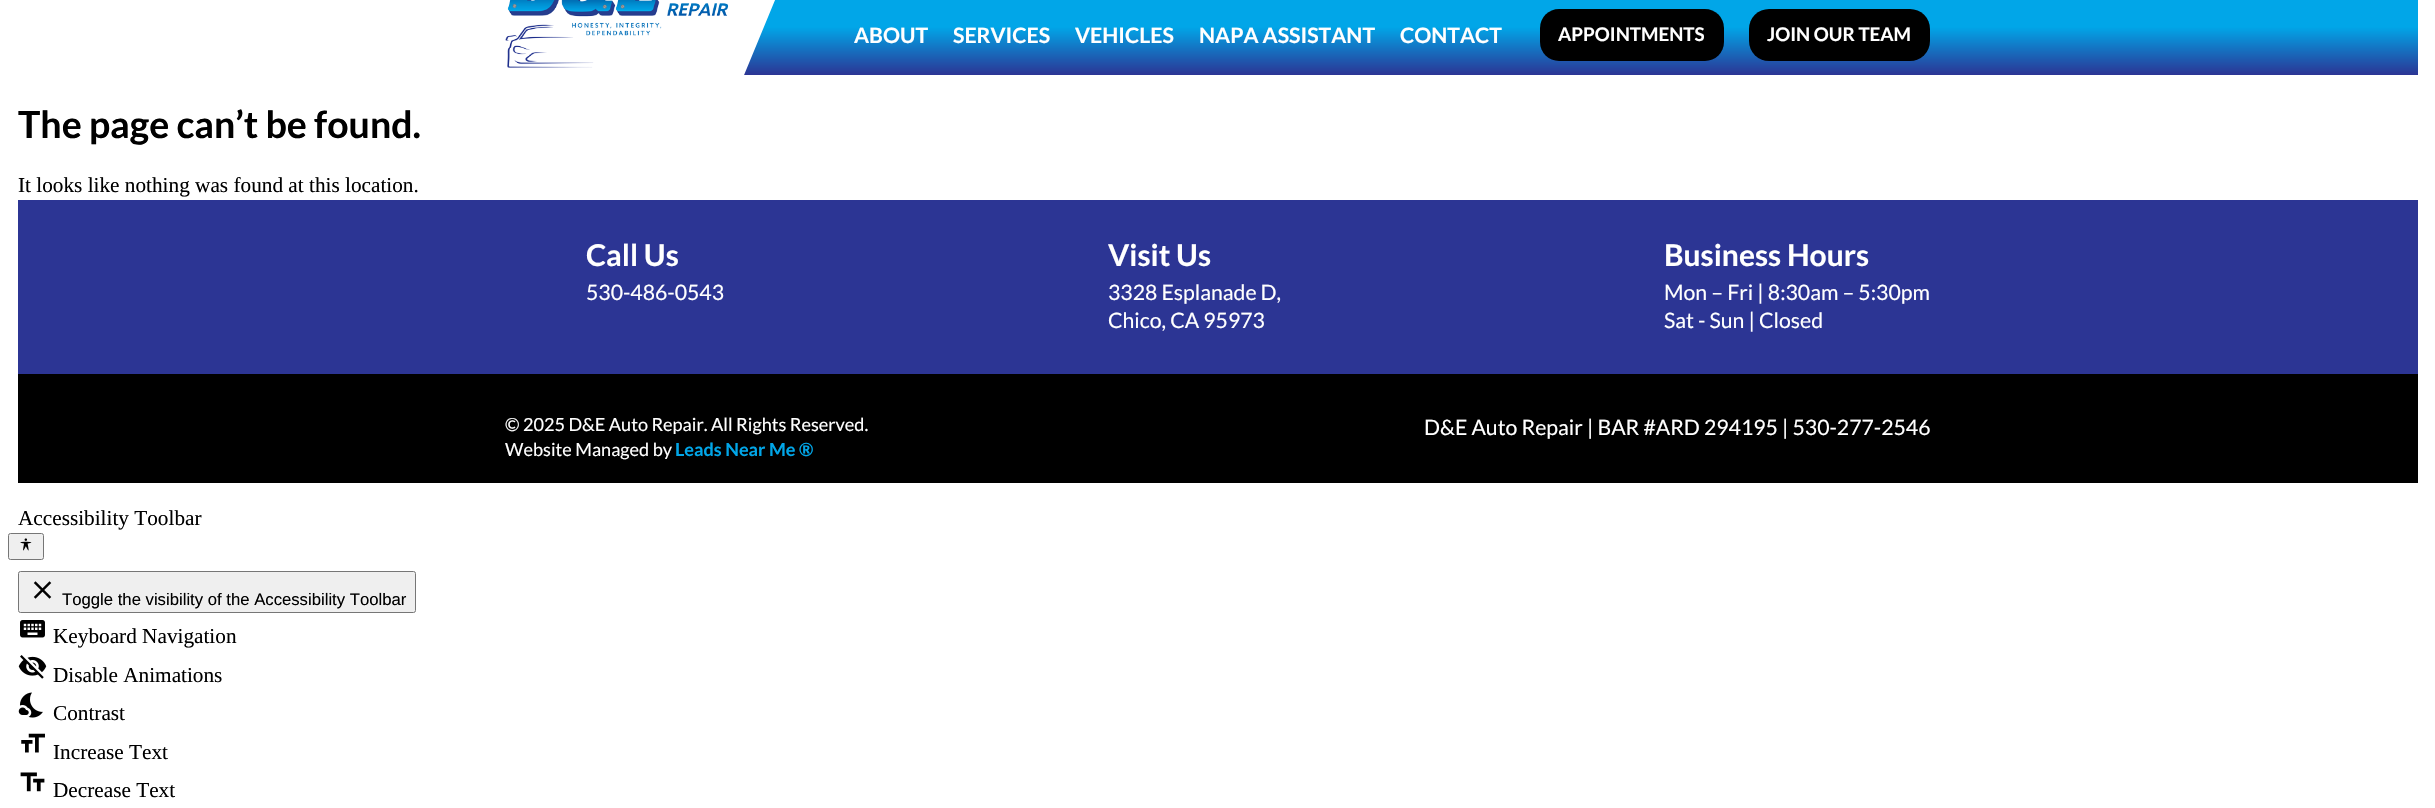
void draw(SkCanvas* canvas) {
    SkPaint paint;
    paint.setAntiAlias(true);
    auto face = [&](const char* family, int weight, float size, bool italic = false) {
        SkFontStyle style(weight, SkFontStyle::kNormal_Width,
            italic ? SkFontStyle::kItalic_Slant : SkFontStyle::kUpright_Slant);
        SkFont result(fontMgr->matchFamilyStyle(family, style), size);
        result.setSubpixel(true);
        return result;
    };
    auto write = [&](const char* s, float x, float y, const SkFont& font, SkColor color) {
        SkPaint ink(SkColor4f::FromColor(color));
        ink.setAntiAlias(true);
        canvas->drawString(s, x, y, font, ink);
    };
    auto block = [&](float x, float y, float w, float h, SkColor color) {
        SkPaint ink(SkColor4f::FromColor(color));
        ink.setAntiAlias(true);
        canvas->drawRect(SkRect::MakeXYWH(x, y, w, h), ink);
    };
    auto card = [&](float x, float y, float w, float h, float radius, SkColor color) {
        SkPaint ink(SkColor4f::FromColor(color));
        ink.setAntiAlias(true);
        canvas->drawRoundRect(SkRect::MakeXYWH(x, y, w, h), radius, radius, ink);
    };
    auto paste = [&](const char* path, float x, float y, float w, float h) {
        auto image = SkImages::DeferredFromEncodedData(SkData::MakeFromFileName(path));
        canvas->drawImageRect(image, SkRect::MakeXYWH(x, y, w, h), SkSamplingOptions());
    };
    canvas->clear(SK_ColorWHITE);
    {
        const SkColor colors[] = {SkColorSetRGB(1, 166, 232), SkColorSetRGB(44, 53, 148)};
        const float stops[] = {0.4f, 1};
        const SkPoint ends[] = {{1218, -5}, {1218, 75}};
        paint.setShader(SkGradientShader::MakeLinear(ends, colors, stops, 2, SkTileMode::kClamp));
        paint.setAlpha(255);
    }
    canvas->drawRect(SkRect::MakeXYWH(744, 0, 1674, 75), paint);
    paint.setShader(nullptr);
    paint.setColor(SK_ColorWHITE);
    canvas->drawPath(SkPathBuilder().moveTo(-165, -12).lineTo(780, -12).lineTo(742, 80).cubicTo(738, 91, 725, 100, 714, 100).lineTo(-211, 100).close().detach(), paint);
    paste("pic1.png", 505, 0, 224, 68);
    auto kFont1 = face("Lato", 700, 21.25f);
    write("ABOUT", 854, 43, kFont1, SK_ColorWHITE);
    write("SERVICES", 953, 43, kFont1, SK_ColorWHITE);
    write("VEHICLES", 1075, 43, kFont1, SK_ColorWHITE);
    write("NAPA ASSISTANT", 1199, 43, kFont1, SK_ColorWHITE);
    write("CONTACT", 1400, 43, kFont1, SK_ColorWHITE);
    card(1540, 9, 184, 52, 19, SK_ColorBLACK);
    auto kFont2 = face("Lato", 700, 18.75f);
    write("APPOINTMENTS", 1558, 41, kFont2, SK_ColorWHITE);
    card(1749, 9, 181, 52, 20, SK_ColorBLACK);
    write("JOIN OUR TEAM", 1767, 41, kFont2, SK_ColorWHITE);
    auto kFont3 = face("Lato", 700, 37.5f);
    write("The page can’t be found.", 18, 138, kFont3, SK_ColorBLACK);
    auto kFont4 = face("Liberation Serif", 400, 21.25f);
    write("It looks like nothing was found at this location.", 18, 192, kFont4, SK_ColorBLACK);
    block(18, 200, 2400, 174, SkColorSetRGB(44, 53, 148));
    auto kFont5 = face("Lato", 700, 30);
    write("Call Us", 586, 266, kFont5, SK_ColorWHITE);
    auto kFont6 = face("Lato", 400, 21.25f);
    write("530-486-0543", 586, 300, kFont6, SK_ColorWHITE);
    write("Visit Us", 1108, 266, kFont5, SK_ColorWHITE);
    write("3328 Esplanade D,", 1108, 300, kFont6, SK_ColorWHITE);
    write("Chico, CA 95973", 1108, 328, kFont6, SK_ColorWHITE);
    write("Business Hours", 1664, 266, kFont5, SK_ColorWHITE);
    write("Mon – Fri | 8:30am – 5:30pm", 1664, 300, kFont6, SK_ColorWHITE);
    write("Sat - Sun | Closed", 1664, 328, kFont6, SK_ColorWHITE);
    block(18, 374, 2400, 109, SK_ColorBLACK);
    auto kFont7 = face("Lato", 400, 18.1f);
    write("© 2025 D&E Auto Repair. All Rights Reserved.", 505, 431, kFont7, SK_ColorWHITE);
    write("Website Managed by", 505, 456, kFont7, SK_ColorWHITE);
    auto kFont8 = face("Lato", 700, 18.1f);
    write("Leads Near Me ®", 675, 456, kFont8, SkColorSetRGB(1, 166, 232));
    write("D&E Auto Repair | BAR #ARD 294195 | 530-277-2546", 1424, 435, kFont6, SK_ColorWHITE);
    write("Accessibility Toolbar", 18, 525, kFont4, SK_ColorBLACK);
    paint.setColor(SkColorSetRGB(239, 239, 239));
    canvas->drawRoundRect(SkRect::MakeXYWH(18.5f, 571.5f, 397, 41), 2, 2, paint);
    paint.setStyle(SkPaint::kStroke_Style);
    paint.setStrokeWidth(1);
    paint.setColor(SkColorSetRGB(118, 118, 118));
    canvas->drawRoundRect(SkRect::MakeXYWH(18.5f, 571.5f, 397, 41), 2, 2, paint);
    paste("pic2.png", 33, 581, 19, 18);
    auto kFont9 = face("Liberation Sans", 400, 16.7f);
    write("Toggle the visibility of the Accessibility Toolbar", 62, 605, kFont9, SK_ColorBLACK);
    paste("pic3.png", 20, 620, 25, 18);
    write("Keyboard Navigation", 53, 643, kFont4, SK_ColorBLACK);
    paste("pic4.png", 18, 655, 29, 24);
    write("Disable Animations", 53, 682, kFont4, SK_ColorBLACK);
    paste("pic5.png", 18, 692, 25, 26);
    write("Contrast", 53, 720, kFont4, SK_ColorBLACK);
    paste("pic6.png", 21, 733, 24, 20);
    write("Increase Text", 53, 759, kFont4, SK_ColorBLACK);
    paste("pic7.png", 20, 772, 25, 20);
    write("Decrease Text", 53, 797, kFont4, SK_ColorBLACK);
    paint.setStyle(SkPaint::kFill_Style);
    paint.setColor(SkColorSetRGB(239, 239, 239));
    canvas->drawRoundRect(SkRect::MakeXYWH(8.5f, 533.5f, 35, 26), 2, 2, paint);
    paint.setStyle(SkPaint::kStroke_Style);
    paint.setColor(SkColorSetRGB(118, 118, 118));
    canvas->drawRoundRect(SkRect::MakeXYWH(8.5f, 533.5f, 35, 26), 2, 2, paint);
    paste("pic8.png", 20, 538, 12, 13);
}
